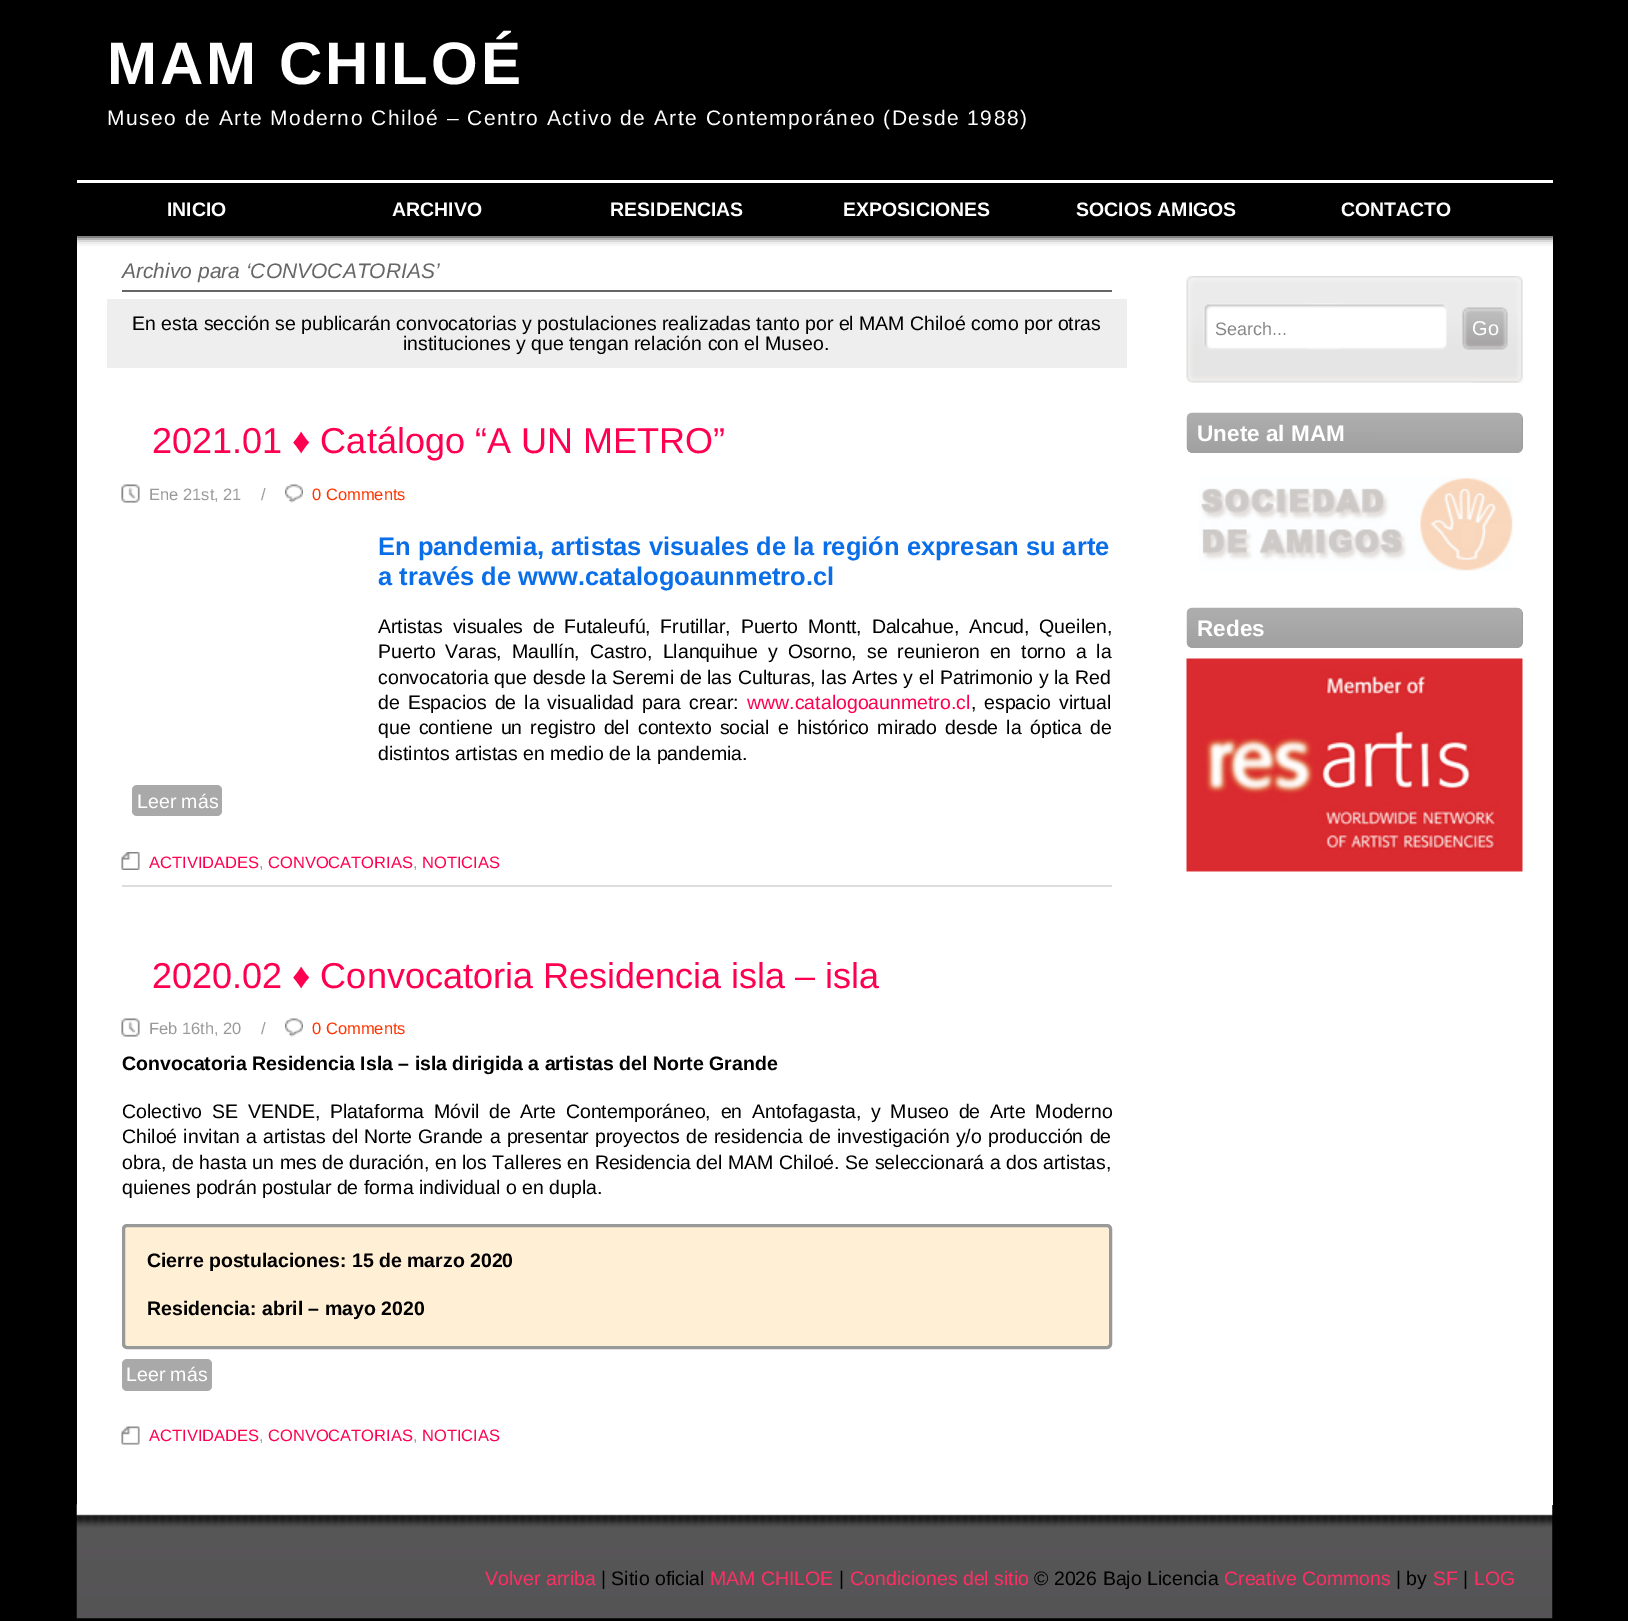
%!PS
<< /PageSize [1628 1621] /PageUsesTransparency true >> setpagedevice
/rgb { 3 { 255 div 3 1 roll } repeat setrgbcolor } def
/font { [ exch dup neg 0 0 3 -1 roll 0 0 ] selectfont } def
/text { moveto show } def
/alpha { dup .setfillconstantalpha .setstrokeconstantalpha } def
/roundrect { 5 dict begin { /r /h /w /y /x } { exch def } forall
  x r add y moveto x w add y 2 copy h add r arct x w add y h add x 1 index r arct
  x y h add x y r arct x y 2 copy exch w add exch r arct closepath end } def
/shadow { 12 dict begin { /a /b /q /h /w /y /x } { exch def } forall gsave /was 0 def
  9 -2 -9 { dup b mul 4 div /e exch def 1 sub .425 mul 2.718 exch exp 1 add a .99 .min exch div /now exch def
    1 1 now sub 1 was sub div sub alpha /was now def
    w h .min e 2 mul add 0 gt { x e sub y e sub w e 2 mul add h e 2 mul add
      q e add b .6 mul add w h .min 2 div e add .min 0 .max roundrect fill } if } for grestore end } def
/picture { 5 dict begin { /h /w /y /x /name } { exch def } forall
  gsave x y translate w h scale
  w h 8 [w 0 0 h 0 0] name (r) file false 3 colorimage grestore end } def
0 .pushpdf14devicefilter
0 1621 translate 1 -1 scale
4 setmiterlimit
0 0 0 rgb
0 0 1628 1621 rectfill
255 255 255 rgb
77 236 1476 1269 rectfill
gsave
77 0 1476 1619 rectclip
0 0 0 rgb
77 182 1476 55 0 4 1 shadow
grestore
77 180 1476 3 rectfill
102 102 102 rgb
122 290 990 2 rectfill
238 238 238 rgb
107 299 1020 69 rectfill
(img_01.rgb) 121 484 19 19 picture
(img_02.rgb) 285 484 18 19 picture
169 169 169 rgb
132 785 90 31 5 roundrect fill
(img_03.rgb) 121 852 19 18 picture
221 221 221 rgb
122 885 990 2 rectfill
(img_01.rgb) 121 1018 19 19 picture
(img_02.rgb) 285 1018 18 19 picture
255 239 213 rgb
123.5 1225.5 987 122 3.5 roundrect gsave fill grestore
153 153 153 rgb
3 setlinewidth
stroke
169 169 169 rgb
122 1359 90 32 5 roundrect fill
(img_04.rgb) 121 1426 19 19 picture
(img_05.rgb) 1186 276 337 107 picture
(img_06.rgb) 1473 276 50 107 picture
(img_07.rgb) 1203 303 244 47 picture
(img_08.rgb) 1462 307 46 43 picture
153 153 153 rgb
1187 413 336 40 6 roundrect fill
(img_09.rgb) 1186 412 337 41 picture
(img_10.rgb) 1199 477 314 94 picture
1187 608 336 40 6 roundrect fill
(img_11.rgb) 1186 607 337 41 picture
(img_12.rgb) 1186 658 337 214 picture
(img_13.rgb) 76 1504 1477 115 picture
/LiberationSans-Bold 60 font
255 255 255 rgb
107 84 moveto 3 0 (MAM CHILOÉ) ashow
/LiberationSans-Regular 21 font
107 125 moveto 1.5 0 (Museo de Arte Moderno Chiloé – Centro Activo de Arte Contemporáneo \(Desde 1988\)) ashow
/LiberationSans-Bold 19.5 font
(INICIO) 167 216 text
(ARCHIVO) 392 216 text
(RESIDENCIAS) 610 216 text
(EXPOSICIONES) 843 216 text
(SOCIOS AMIGOS) 1076 216 text
(CONTACTO) 1341 216 text
/LiberationSans-Italic 21 font
102 102 102 rgb
(Archivo para ‘CONVOCATORIAS’) 122 278 text
/LiberationSans-Regular 19.5 font
0 0 0 rgb
(En esta sección se publicarán convocatorias y postulaciones realizadas tanto por el MAM Chiloé como por otras) 132 330 text
(instituciones y que tengan relación con el Museo.) 403 350 text
/LiberationSans-Regular 36 font
255 0 80 rgb
(2021.01 ♦ Catálogo “A UN METRO”) 152 453 text
/LiberationSans-Regular 16.5 font
153 153 153 rgb
(Ene 21st, 21) 149 500 text
(/) 261 500 text
255 51 0 rgb
(0 Comments) 312 500 text
/LiberationSans-Bold 25.5 font
9 110 232 rgb
(En pandemia, artistas visuales de la región expresan su arte) 378 555 text
(a través de www.catalogoaunmetro.cl) 378 585 text
/LiberationSans-Regular 19.5 font
0 0 0 rgb
378 633 moveto 4.25 0 32 (Artistas visuales de Futaleufú, Frutillar, Puerto Montt, Dalcahue, Ancud, Queilen,) widthshow
378 658 moveto 4.5 0 32 (Puerto Varas, Maullín, Castro, Llanquihue y Osorno, se reunieron en torno a la) widthshow
378 684 moveto 0.3 0 32 (convocatoria que desde la Seremi de las Culturas, las Artes y el Patrimonio y la Red) widthshow
378 709 moveto 2.5 0 32 (de Espacios de la visualidad para crear:) widthshow
255 0 80 rgb
(www.catalogoaunmetro.cl) 747 709 text
0 0 0 rgb
(,) 971 709 text
984 709 moveto 2.5 0 32 (espacio virtual) widthshow
378 734 moveto 2.75 0 32 (que contiene un registro del contexto social e histórico mirado desde la óptica de) widthshow
(distintos artistas en medio de la pandemia.) 378 760 text
255 255 255 rgb
(Leer más) 137 808 text
/LiberationSans-Regular 16.5 font
255 0 80 rgb
(ACTIVIDADES) 149 868 text
153 153 153 rgb
(,) 259 868 text
255 0 80 rgb
(CONVOCATORIAS) 268 868 text
153 153 153 rgb
(,) 413 868 text
255 0 80 rgb
(NOTICIAS) 422 868 text
/LiberationSans-Regular 36 font
(2020.02 ♦ Convocatoria Residencia isla – isla) 152 988 text
/LiberationSans-Regular 16.5 font
153 153 153 rgb
(Feb 16th, 20) 149 1034 text
(/) 261 1034 text
255 51 0 rgb
(0 Comments) 312 1034 text
/LiberationSans-Bold 19.5 font
0 0 0 rgb
(Convocatoria Residencia Isla – isla dirigida a artistas del Norte Grande) 122 1070 text
/LiberationSans-Regular 19.5 font
122 1118 moveto 4.25 0 32 (Colectivo SE VENDE, Plataforma Móvil de Arte Contemporáneo, en Antofagasta, y Museo de Arte Moderno) widthshow
122 1143 moveto 0.8 0 32 (Chiloé invitan a artistas del Norte Grande a presentar proyectos de residencia de investigación y/o producción de) widthshow
122 1169 moveto 0.1 0 32 (obra, de hasta un mes de duración, en los Talleres en Residencia del MAM Chiloé. Se seleccionará a dos artistas,) widthshow
(quienes podrán postular de forma individual o en dupla.) 122 1194 text
/LiberationSans-Bold 19.5 font
(Cierre postulaciones: 15 de marzo 2020) 147 1267 text
(Residencia: abril – mayo 2020) 147 1315 text
/LiberationSans-Regular 19.5 font
255 255 255 rgb
(Leer más) 126 1381 text
/LiberationSans-Regular 16.5 font
255 0 80 rgb
(ACTIVIDADES) 149 1441 text
153 153 153 rgb
(,) 259 1441 text
255 0 80 rgb
(CONVOCATORIAS) 268 1441 text
153 153 153 rgb
(,) 413 1441 text
255 0 80 rgb
(NOTICIAS) 422 1441 text
/LiberationSans-Regular 18 font
136 136 136 rgb
(Search...) 1215 335 text
/LiberationSans-Regular 20 font
255 255 255 rgb
(Go) 1472 335 text
/LiberationSans-Bold 22.5 font
(Unete al MAM) 1197 441 text
(Redes) 1197 636 text
/LiberationSans-Regular 19.5 font
254 46 100 rgb
(Volver arriba) 485 1585 text
0 0 0 rgb
(| Sitio oficial) 601 1585 text
254 46 100 rgb
(MAM CHILOE) 710 1585 text
0 0 0 rgb
(|) 839 1585 text
254 46 100 rgb
(Condiciones del sitio) 850 1585 text
0 0 0 rgb
(© 2026 Bajo Licencia) 1034 1585 text
254 46 100 rgb
(Creative Commons) 1224 1585 text
0 0 0 rgb
(| by) 1396 1585 text
254 46 100 rgb
(SF) 1433 1585 text
0 0 0 rgb
(|) 1463 1585 text
254 46 100 rgb
(LOG) 1474 1585 text
.poppdf14devicefilter showpage
